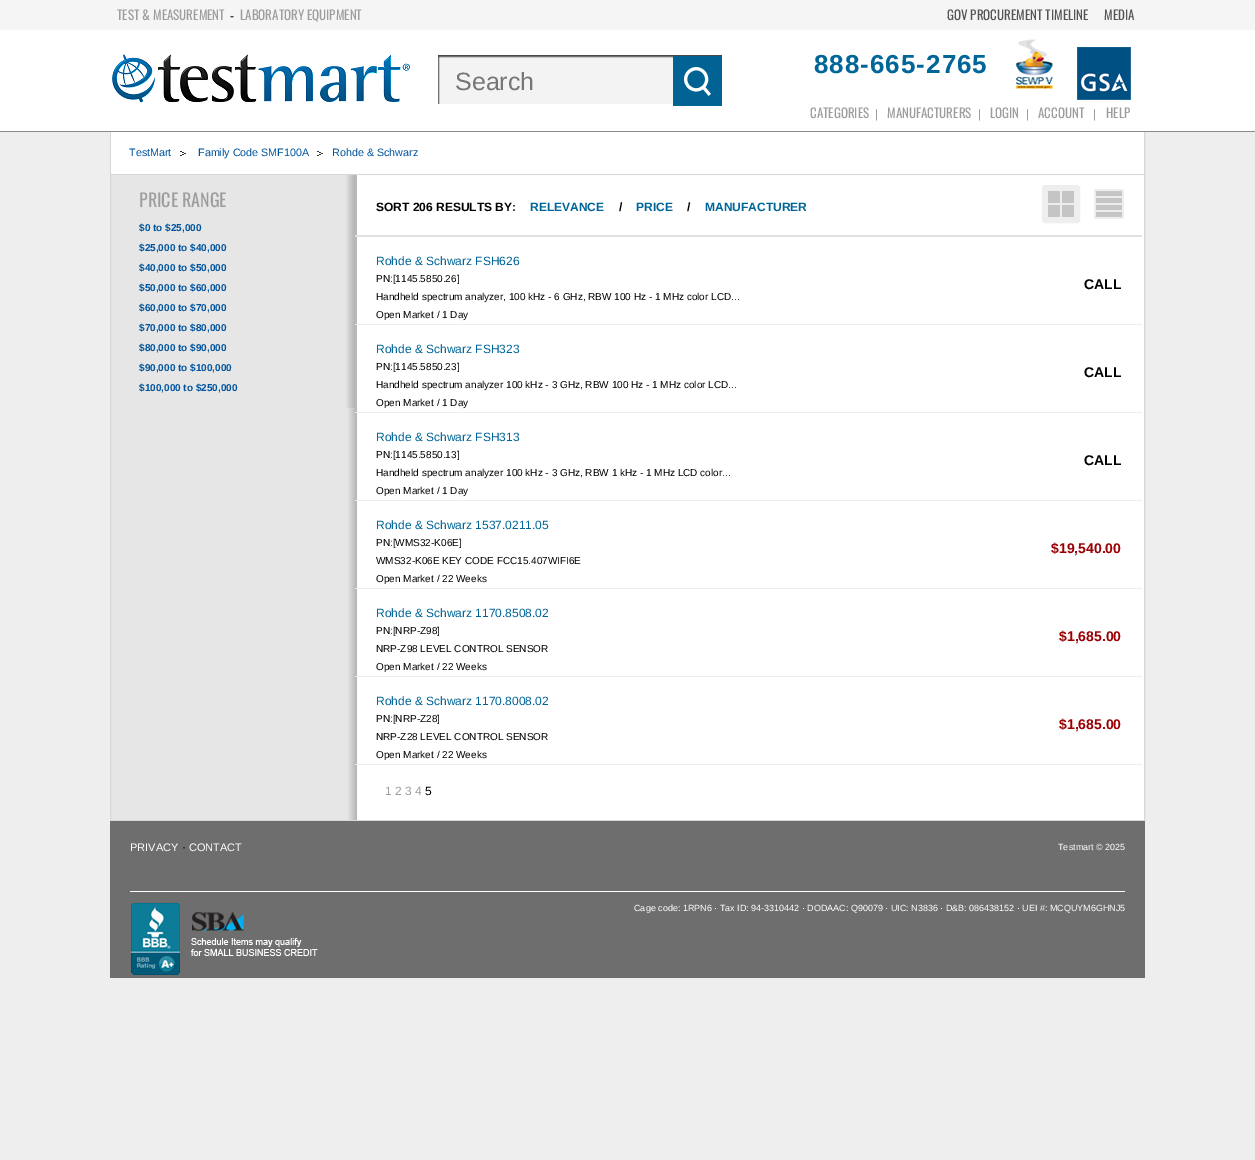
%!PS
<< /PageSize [1255 1160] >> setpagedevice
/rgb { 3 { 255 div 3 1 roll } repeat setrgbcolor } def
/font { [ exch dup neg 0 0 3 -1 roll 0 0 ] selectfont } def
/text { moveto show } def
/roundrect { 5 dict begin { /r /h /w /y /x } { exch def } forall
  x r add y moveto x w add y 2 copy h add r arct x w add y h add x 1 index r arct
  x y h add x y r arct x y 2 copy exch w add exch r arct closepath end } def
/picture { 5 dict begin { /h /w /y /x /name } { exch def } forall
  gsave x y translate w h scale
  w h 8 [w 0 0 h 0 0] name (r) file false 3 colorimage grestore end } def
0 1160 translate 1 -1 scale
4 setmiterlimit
238 238 238 rgb
0 0 1255 1160 rectfill
255 255 255 rgb
357 175 787 645 rectfill
(img_01.rgb) 111 175 246 645 picture
215 215 215 rgb
110.5 109.5 1034 711 rectstroke
(img_02.rgb) 0 0 1255 132 picture
(img_03.rgb) 112 54 298 49 picture
(img_04.rgb) 438 55 235 49 picture
(img_05.rgb) 673 55 49 51 picture
(img_06.rgb) 1016 39 37 50 picture
(img_07.rgb) 1077 47 54 53 picture
255 255 255 rgb
111 132 1033 42 rectfill
215 215 215 rgb
111 174 1033 1 rectfill
(img_08.rgb) 180 151 6 5 picture
(img_08.rgb) 317 151 6 5 picture
(img_09.rgb) 346 175 9 233 picture
225 225 225 rgb
355 235 787 2 rectfill
(img_10.rgb) 1046 189 30 30 picture
238 238 238 rgb
4 setlinewidth
1044 187 34 34 1 roundrect stroke
(img_11.rgb) 1094 189 30 30 picture
355 324 787 1 rectfill
355 412 787 1 rectfill
355 500 787 1 rectfill
355 588 787 1 rectfill
355 676 787 1 rectfill
355 764 787 1 rectfill
110 110 110 rgb
110 821 1035 157 rectfill
255 255 255 rgb
130 891 995 1 rectfill
(img_12.rgb) 131 903 187 72 picture
/Oswald-Regular 13 font
157 157 157 rgb
(TEST & MEASUREMENT) 117 20 text
/LiberationSans-Regular 12 font
0 0 0 rgb
(-) 230 20 text
/Oswald-Regular 13 font
157 157 157 rgb
(LABORATORY EQUIPMENT) 240 20 text
84 84 84 rgb
(GOV PROCUREMENT TIMELINE) 947 20 text
(MEDIA) 1104 20 text
/LiberationSans-Regular 25 font
117 117 117 rgb
(Search) 455 90 text
/LiberationSans-Bold 26 font
0 101 153 rgb
814 73 moveto 1 0 (888-665-2765) ashow
/Oswald-Regular 13 font
157 157 157 rgb
(CATEGORIES) 810 118 text
/LiberationSans-Regular 12 font
(|) 875 118 text
/Oswald-Regular 13 font
(MANUFACTURERS) 887 118 text
/LiberationSans-Regular 12 font
(|) 978 118 text
/Oswald-Regular 13 font
(LOGIN) 990 118 text
/LiberationSans-Regular 12 font
(|) 1026 118 text
/Oswald-Regular 13 font
(ACCOUNT) 1038 118 text
/LiberationSans-Regular 12 font
(|) 1093 118 text
/Oswald-Regular 13 font
(HELP) 1106 118 text
/LiberationSans-Regular 10.75 font
0 84 158 rgb
(TestMart) 129 156 text
(Family Code SMF100A) 198 156 text
(Rohde & Schwarz) 332 156 text
/Oswald-Regular 18 font
157 157 157 rgb
(PRICE RANGE) 139 207 text
/LiberationSans-Bold 10 font
0 84 158 rgb
($0 to $25,000) 139 231 text
($25,000 to $40,000) 139 251 text
($40,000 to $50,000) 139 271 text
($50,000 to $60,000) 139 291 text
($60,000 to $70,000) 139 311 text
($70,000 to $80,000) 139 331 text
($80,000 to $90,000) 139 351 text
($90,000 to $100,000) 139 371 text
($100,000 to $250,000) 139 391 text
/LiberationSans-Bold 12 font
0 0 0 rgb
(SORT 206 RESULTS BY:) 376 211 text
0 101 153 rgb
(RELEVANCE) 530 211 text
0 0 0 rgb
(/) 619 211 text
0 101 153 rgb
(PRICE) 636 211 text
0 0 0 rgb
(/) 687 211 text
0 101 153 rgb
(MANUFACTURER) 705 211 text
/LiberationSans-Regular 12 font
(Rohde & Schwarz FSH626) 376 265 text
/LiberationSans-Regular 10 font
0 0 0 rgb
(PN:[1145.5850.26]) 376 282 text
(Handheld spectrum analyzer, 100 kHz - 6 GHz, RBW 100 Hz - 1 MHz color LCD...) 376 300 text
(Open Market / 1 Day) 376 318 text
/LiberationSans-Bold 14 font
(CALL) 1084 289 text
/LiberationSans-Regular 12 font
0 101 153 rgb
(Rohde & Schwarz FSH323) 376 353 text
/LiberationSans-Regular 10 font
0 0 0 rgb
(PN:[1145.5850.23]) 376 370 text
(Handheld spectrum analyzer 100 kHz - 3 GHz, RBW 100 Hz - 1 MHz color LCD...) 376 388 text
(Open Market / 1 Day) 376 406 text
/LiberationSans-Bold 14 font
(CALL) 1084 377 text
/LiberationSans-Regular 12 font
0 101 153 rgb
(Rohde & Schwarz FSH313) 376 441 text
/LiberationSans-Regular 10 font
0 0 0 rgb
(PN:[1145.5850.13]) 376 458 text
(Handheld spectrum analyzer 100 kHz - 3 GHz, RBW 1 kHz - 1 MHz LCD color...) 376 476 text
(Open Market / 1 Day) 376 494 text
/LiberationSans-Bold 14 font
(CALL) 1084 465 text
/LiberationSans-Regular 12 font
0 101 153 rgb
(Rohde & Schwarz 1537.0211.05) 376 529 text
/LiberationSans-Regular 10 font
0 0 0 rgb
(PN:[WMS32-K06E]) 376 546 text
(WMS32-K06E KEY CODE FCC15.407WIFI6E) 376 564 text
(Open Market / 22 Weeks) 376 582 text
/LiberationSans-Bold 14 font
154 1 6 rgb
($19,540.00) 1051 553 text
/LiberationSans-Regular 12 font
0 101 153 rgb
(Rohde & Schwarz 1170.8508.02) 376 617 text
/LiberationSans-Regular 10 font
0 0 0 rgb
(PN:[NRP-Z98]) 376 634 text
(NRP-Z98 LEVEL CONTROL SENSOR) 376 652 text
(Open Market / 22 Weeks) 376 670 text
/LiberationSans-Bold 14 font
154 1 6 rgb
($1,685.00) 1059 641 text
/LiberationSans-Regular 12 font
0 101 153 rgb
(Rohde & Schwarz 1170.8008.02) 376 705 text
/LiberationSans-Regular 10 font
0 0 0 rgb
(PN:[NRP-Z28]) 376 722 text
(NRP-Z28 LEVEL CONTROL SENSOR) 376 740 text
(Open Market / 22 Weeks) 376 758 text
/LiberationSans-Bold 14 font
154 1 6 rgb
($1,685.00) 1059 729 text
/LiberationSans-Regular 12 font
157 157 157 rgb
(1 2 3 4) 385 795 text
0 0 0 rgb
(5) 425 795 text
/LiberationSans-Regular 11 font
255 255 255 rgb
(PRIVACY) 130 851 text
/LiberationSans-Regular 12 font
0 0 0 rgb
(·) 182 851 text
/LiberationSans-Regular 11 font
255 255 255 rgb
(CONTACT) 189 851 text
/LiberationSans-Regular 9 font
(Testmart © 2025) 1058 850 text
(Cage code: 1RPN6 · Tax ID: 94-3310442 · DODAAC: Q90079 · UIC: N3836 · D&B: 086438152 · UEI #: MCQUYM6GHNJ5) 634 911 text
showpage
